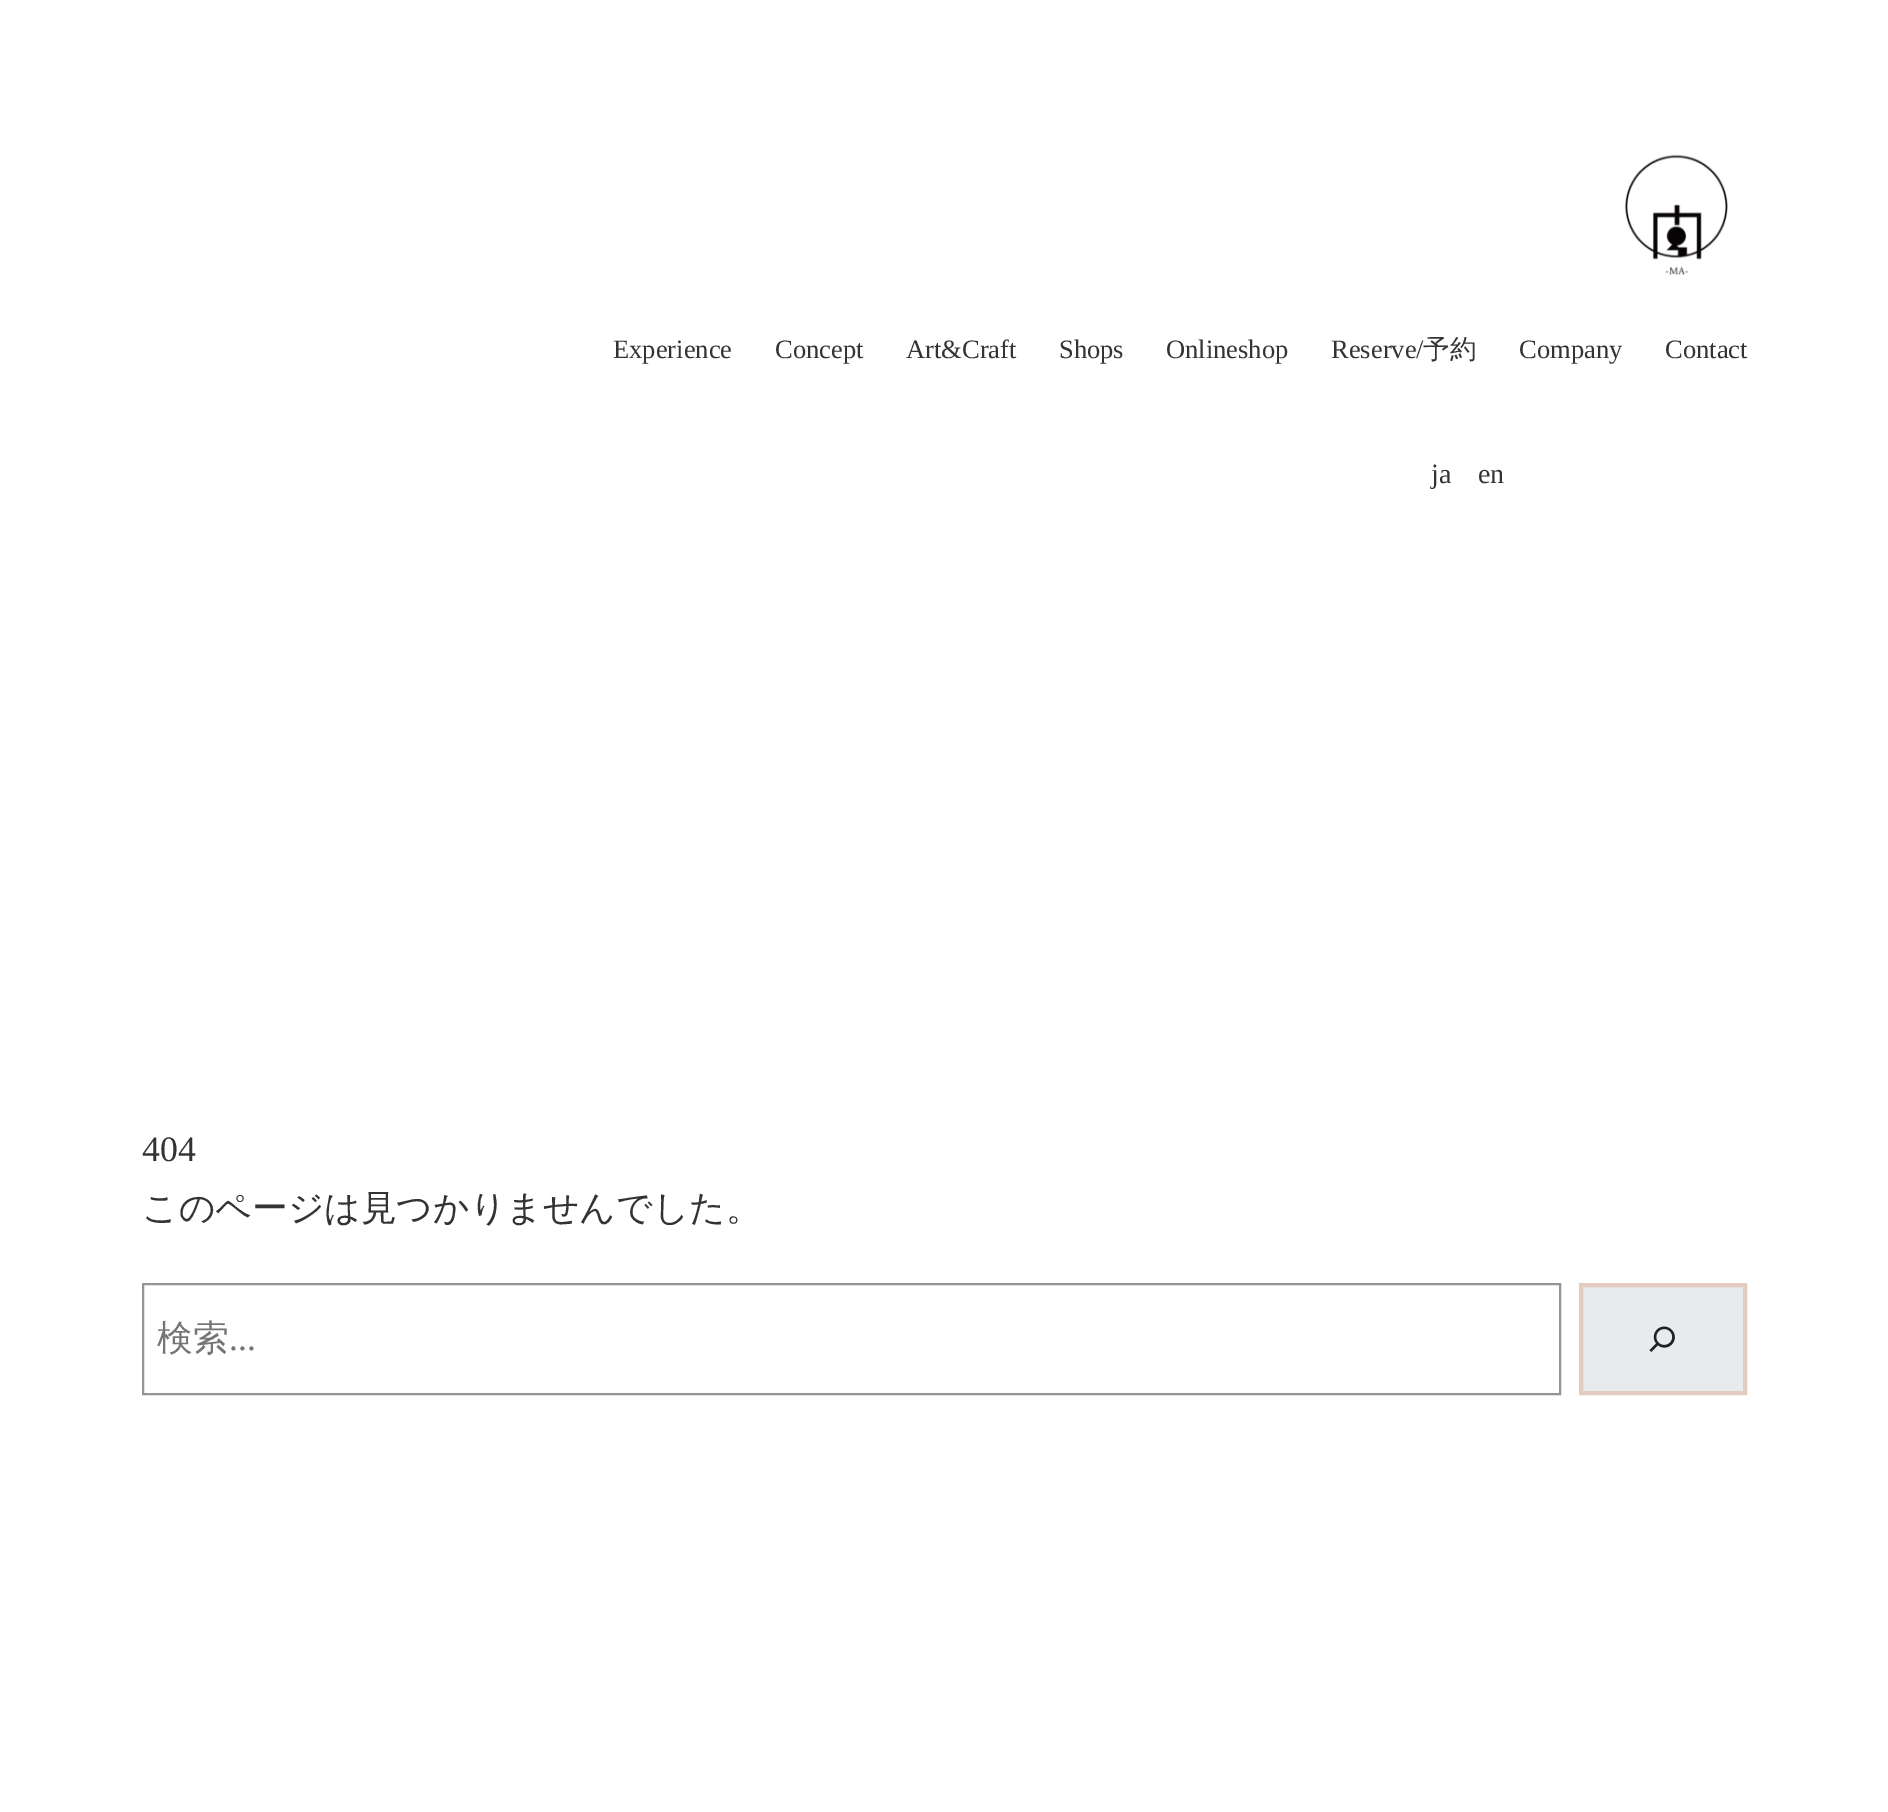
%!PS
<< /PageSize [1888 1812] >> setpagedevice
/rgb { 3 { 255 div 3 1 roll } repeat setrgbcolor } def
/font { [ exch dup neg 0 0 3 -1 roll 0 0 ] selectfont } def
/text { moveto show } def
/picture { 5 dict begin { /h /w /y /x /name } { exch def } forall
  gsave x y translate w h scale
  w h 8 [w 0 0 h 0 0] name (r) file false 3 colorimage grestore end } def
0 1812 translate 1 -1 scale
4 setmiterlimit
255 255 255 rgb
0 0 1888 1812 rectfill
(img_01.rgb) 1625 154 103 121 picture
148 148 148 rgb
2 setlinewidth
143 1284 1417 110 rectstroke
232 234 237 rgb
1581 1285 moveto 164 0 rlineto 0 108 rlineto -164 0 rlineto closepath gsave fill grestore
227 203 192 rgb
4 setlinewidth
stroke
(img_02.rgb) 1649 1326 26 26 picture
/LiberationSerif-Regular 26.5 font
51 51 51 rgb
(Experience) 613 358 text
(Concept) 775 358 text
(Art&Craft) 906 358 text
(Shops) 1059 358 text
(Onlineshop) 1166 358 text
(Reserve/) 1331 358 text
/WenQuanYiZenHei-Medium 26.5 font
(予約) 1423 358 text
/LiberationSerif-Regular 26.5 font
(Company) 1519 358 text
(Contact) 1665 358 text
/LiberationSerif-Regular 28 font
(ja) 1431 483 text
(en) 1478 483 text
/LiberationSerif-Regular 35.75 font
(404) 142 1161 text
/WenQuanYiZenHei-Medium 35.75 font
(このページは見つかりませんでした。) 142 1220 text
117 117 117 rgb
(検索) 157 1350 text
/LiberationSerif-Regular 35.75 font
(...) 229 1350 text
showpage
